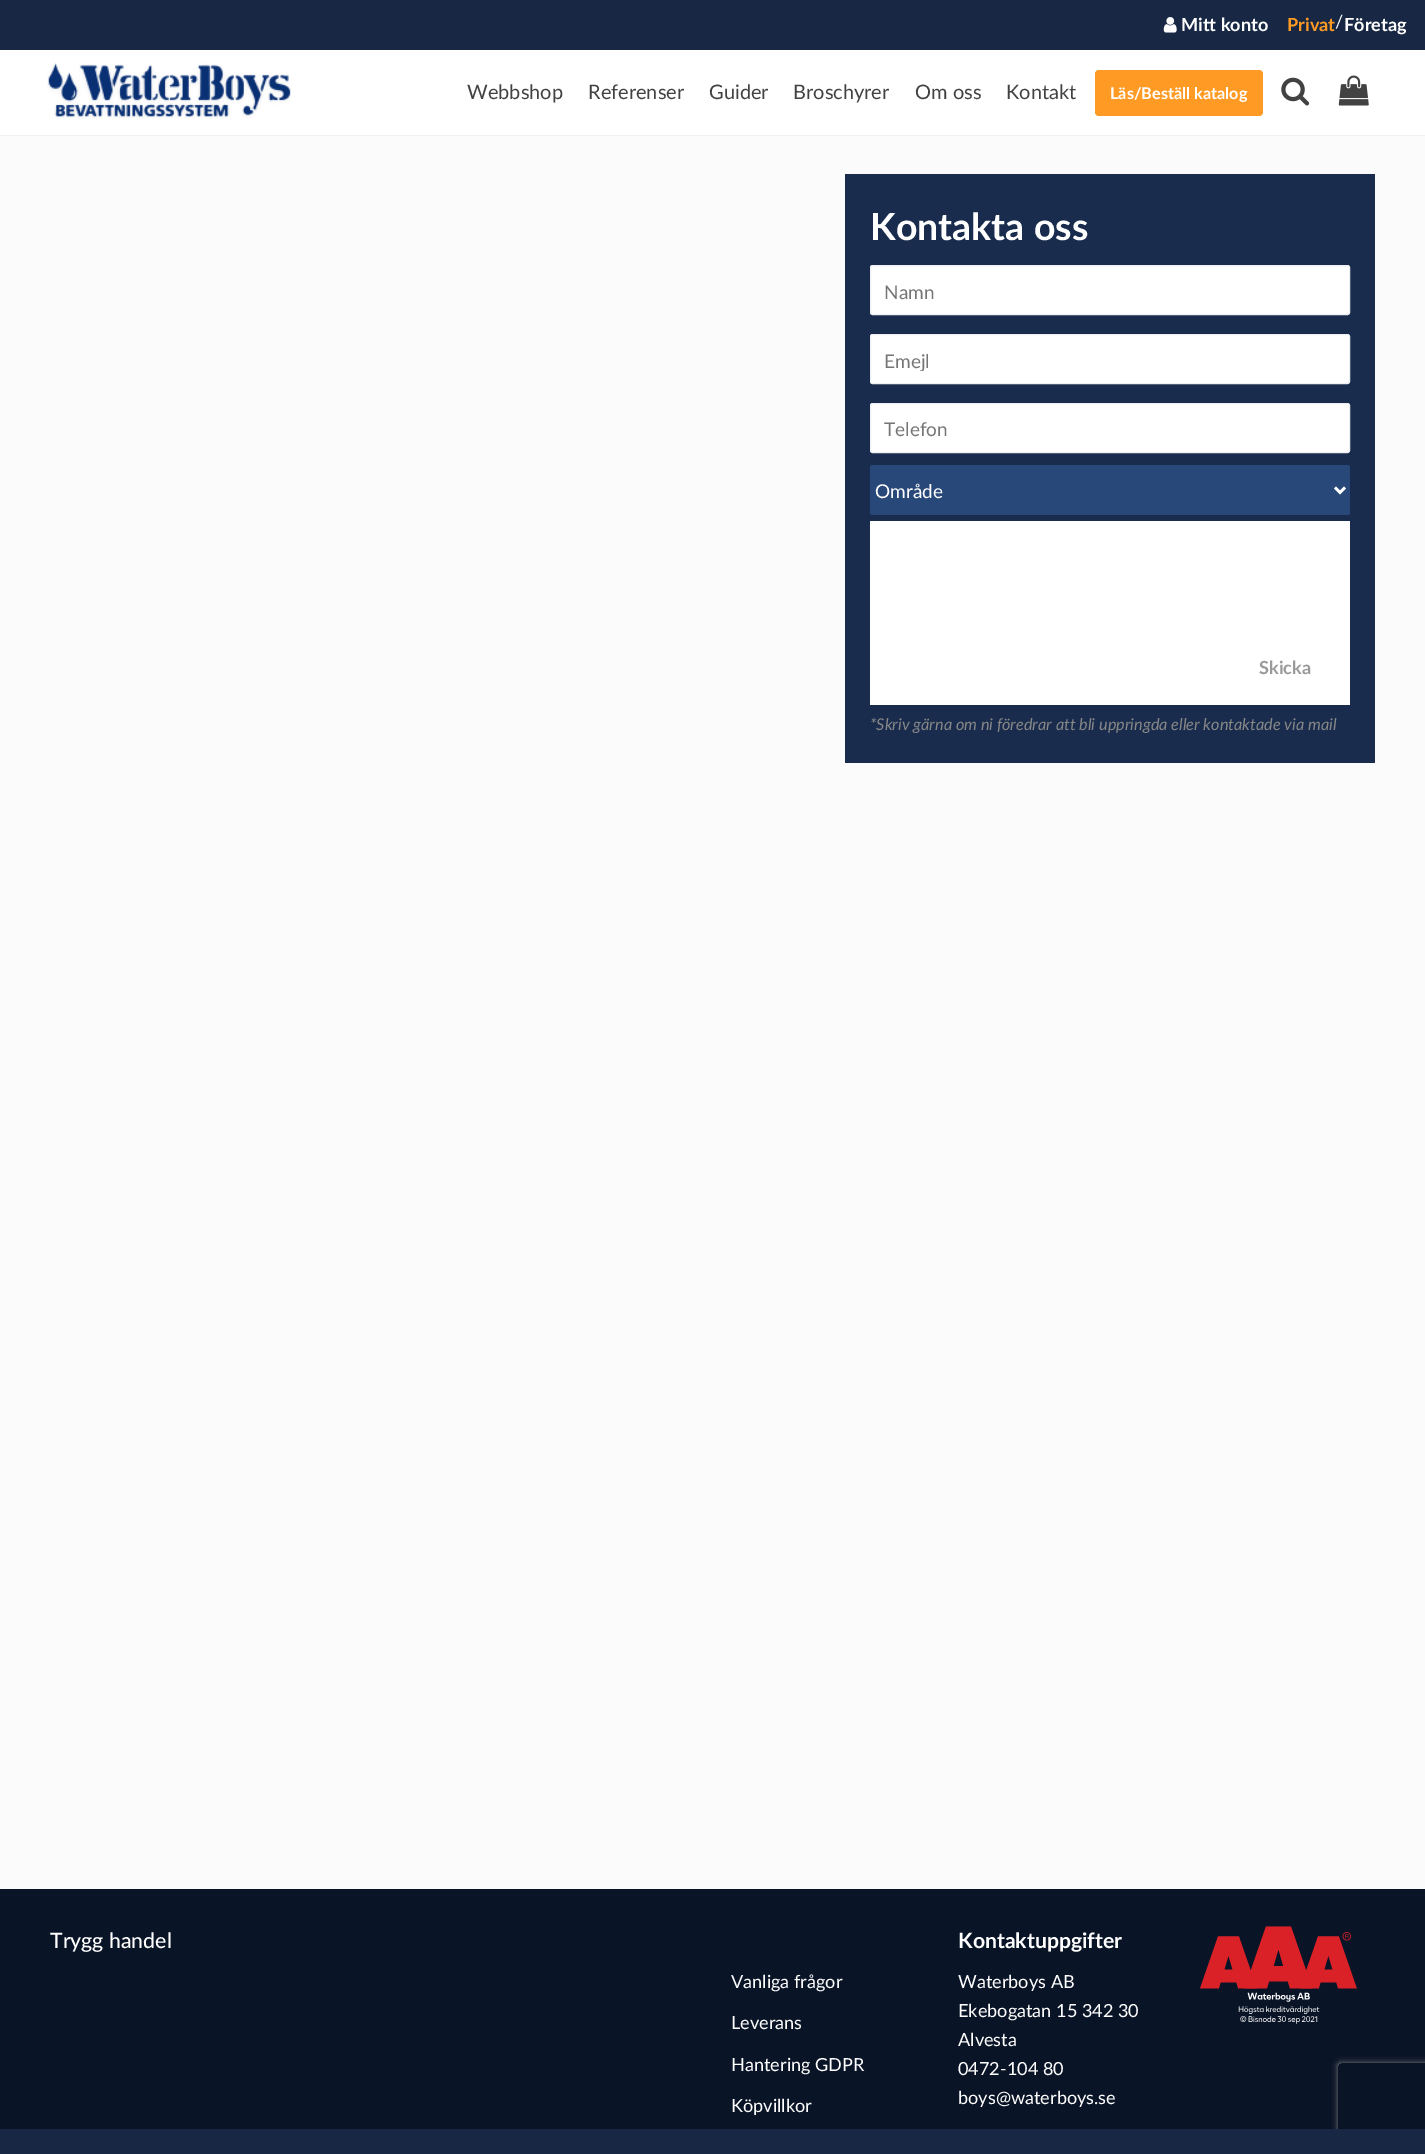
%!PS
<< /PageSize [1425 2154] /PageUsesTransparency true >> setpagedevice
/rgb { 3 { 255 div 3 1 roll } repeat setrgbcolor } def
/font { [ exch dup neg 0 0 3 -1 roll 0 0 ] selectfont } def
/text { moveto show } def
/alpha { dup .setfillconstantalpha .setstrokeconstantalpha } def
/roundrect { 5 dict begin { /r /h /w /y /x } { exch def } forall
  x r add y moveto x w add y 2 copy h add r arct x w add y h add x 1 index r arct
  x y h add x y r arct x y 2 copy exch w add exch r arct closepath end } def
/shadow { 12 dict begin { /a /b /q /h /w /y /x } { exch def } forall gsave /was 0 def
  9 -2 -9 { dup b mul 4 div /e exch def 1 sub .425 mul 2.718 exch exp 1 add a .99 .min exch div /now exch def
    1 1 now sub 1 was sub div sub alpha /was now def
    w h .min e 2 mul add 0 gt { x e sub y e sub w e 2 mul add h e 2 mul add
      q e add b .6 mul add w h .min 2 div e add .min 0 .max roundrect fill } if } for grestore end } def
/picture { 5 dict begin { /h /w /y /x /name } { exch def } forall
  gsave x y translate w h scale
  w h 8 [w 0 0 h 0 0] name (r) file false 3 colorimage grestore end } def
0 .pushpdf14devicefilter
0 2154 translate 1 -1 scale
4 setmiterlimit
10 20 39 rgb
0 0 1425 2154 rectfill
251 251 251 rgb
0 136 1425 1753 rectfill
24 40 68 rgb
0 0 1425 50 rectfill
(img_01.rgb) 1163 17 14 16 picture
255 255 255 rgb
0 50 1425 85 rectfill
237 239 241 rgb
0 135 1425 1 rectfill
(img_02.rgb) 47 63 244 56 picture
255 155 36 rgb
1095 70 168 46 4 roundrect fill
(img_03.rgb) 1281 77 29 29 picture
(img_04.rgb) 1338 75 31 31 picture
25 44 77 rgb
845 174 530 589 rectfill
255 255 255 rgb
870.5 265.5 479 49 2 roundrect gsave fill grestore
237 239 241 rgb
stroke
255 255 255 rgb
870.5 334.5 479 49 2 roundrect gsave fill grestore
237 239 241 rgb
stroke
255 255 255 rgb
870.5 403.5 479 49 2 roundrect gsave fill grestore
237 239 241 rgb
stroke
40 72 122 rgb
870 465 480 50 2.5 roundrect fill
255 255 255 rgb
2.5 setlinewidth
1335 487.5 moveto 5 5 rlineto 5 -5 rlineto stroke
870 521 480 184 rectfill
(img_05.rgb) 1200 1926 157 98 picture
gsave
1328 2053 moveto 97 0 rlineto 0 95 rlineto -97 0 rlineto closepath 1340.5 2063 moveto 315 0 rlineto 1.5 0 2.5 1 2.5 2.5 rcurveto 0 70 rlineto 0 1.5 -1 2.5 -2.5 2.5 rcurveto -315 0 rlineto -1.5 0 -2.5 -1 -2.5 -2.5 rcurveto 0 -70 rlineto 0 -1.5 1 -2.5 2.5 -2.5 rcurveto closepath eoclip newpath
128 128 128 rgb
1338 2063 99 75 2.5 3 1 shadow
grestore
24 40 68 rgb
0 2129 1425 25 rectfill
/Lato-Bold 18.1 font
255 255 255 rgb
(Mitt konto) 1181 31 text
255 155 36 rgb
(Privat) 1287 31 text
/Lato-Regular 18.1 font
255 255 255 rgb
(/) 1335 28 text
/Lato-Bold 18.1 font
(Företag) 1344 31 text
/Lato-Regular 20 font
66 66 66 rgb
(Webbshop) 467 99 text
(Referenser) 588 99 text
(Guider) 709 99 text
(Broschyrer) 793 99 text
(Om oss) 915 99 text
(Kontakt) 1006 99 text
/Lato-Bold 16.25 font
255 255 255 rgb
(Läs/Beställ katalog) 1110 99 text
/Lato-Bold 37.5 font
(Kontakta oss) 870 240 text
/Lato-Regular 19 font
117 117 117 rgb
(Namn) 884 299 text
gsave
884 349 452 22 rectclip
(Emejl) 884 368 text
grestore
(Telefon) 884 436 text
255 255 255 rgb
(Område) 875 498 text
/Lato-Bold 18.1 font
154 154 154 rgb
(Skicka) 1259 674 text
/Lato-Italic 16.25 font
135 135 135 rgb
(*Skriv gärna om ni föredrar att bli uppringda eller kontaktade via mail) 870 730 text
/Lato-Medium 21.25 font
255 255 255 rgb
(Trygg handel) 50 1948 text
/Lato-Regular 18.1 font
(Vanliga frågor) 731 1988 text
(Leverans) 731 2029 text
(Hantering GDPR) 731 2071 text
(Köpvillkor) 731 2112 text
/Lato-Bold 21.25 font
(Kontaktuppgifter) 958 1948 text
/Lato-Regular 18.1 font
(Waterboys AB) 958 1988 text
(Ekebogatan 15 342 30) 958 2017 text
(Alvesta) 958 2046 text
(0472-104 80) 958 2075 text
(boys@waterboys.se) 958 2104 text
.poppdf14devicefilter showpage
